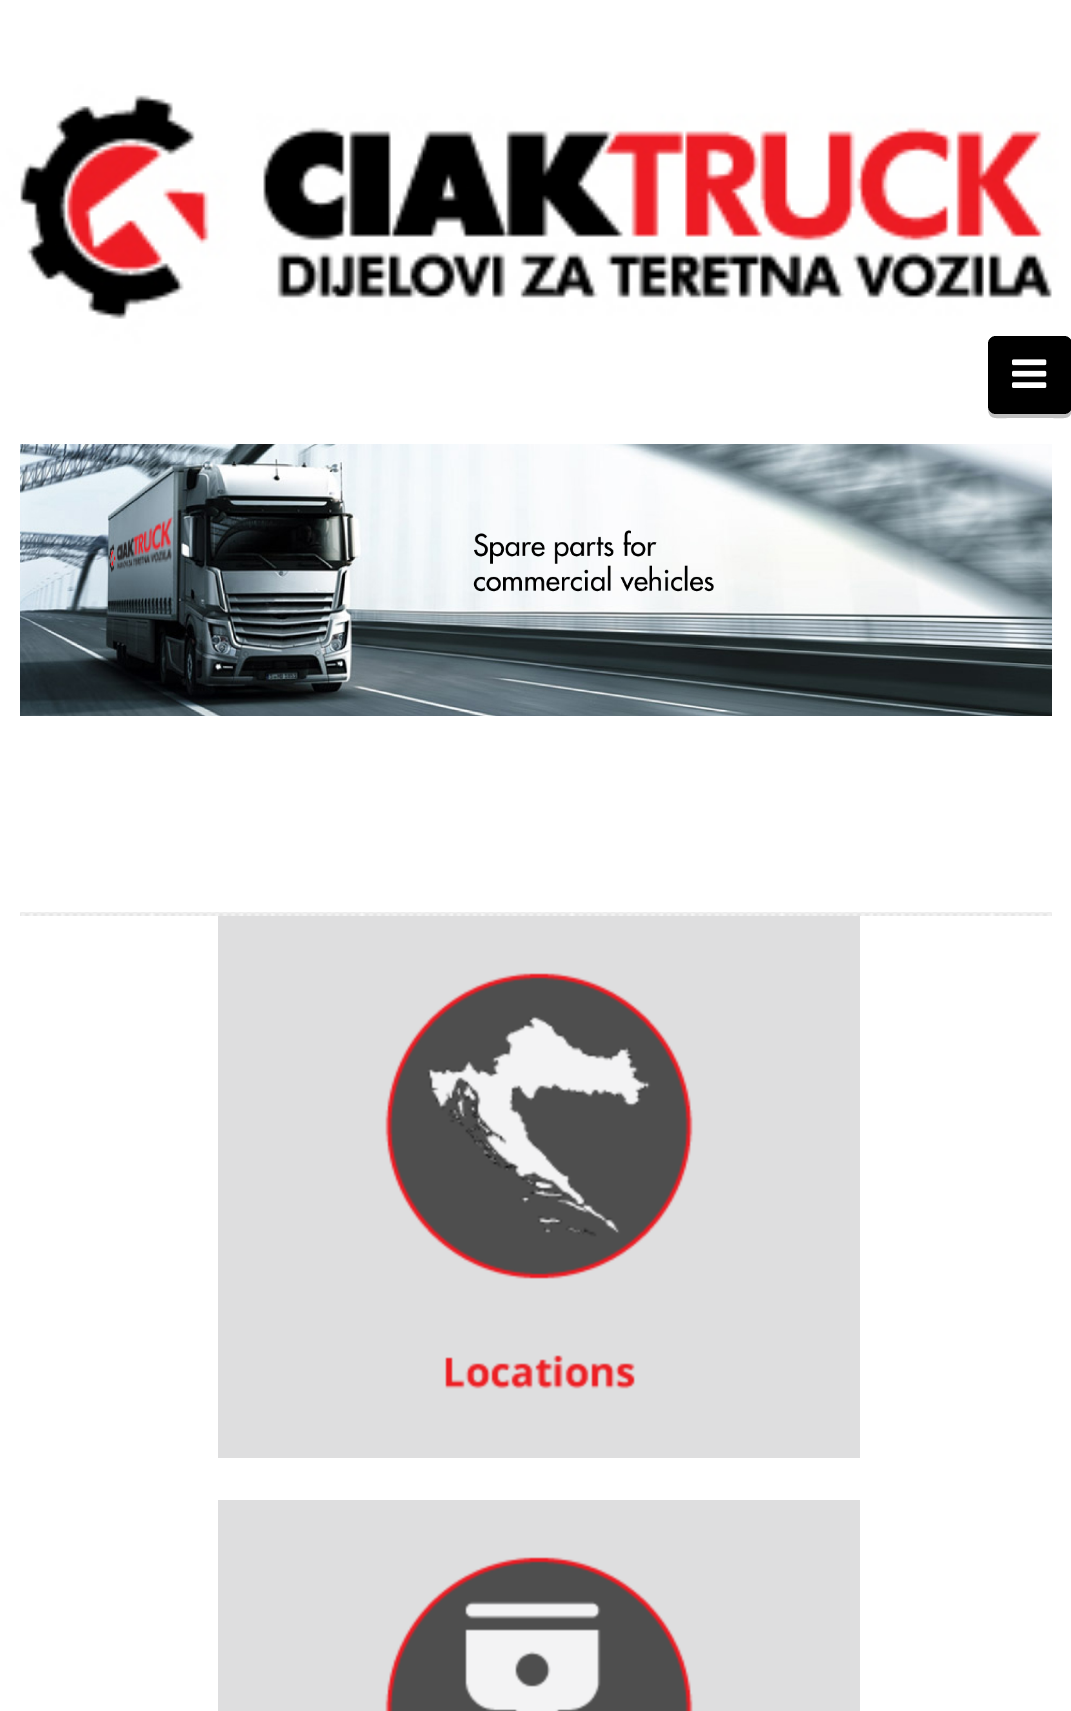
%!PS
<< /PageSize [1071 1711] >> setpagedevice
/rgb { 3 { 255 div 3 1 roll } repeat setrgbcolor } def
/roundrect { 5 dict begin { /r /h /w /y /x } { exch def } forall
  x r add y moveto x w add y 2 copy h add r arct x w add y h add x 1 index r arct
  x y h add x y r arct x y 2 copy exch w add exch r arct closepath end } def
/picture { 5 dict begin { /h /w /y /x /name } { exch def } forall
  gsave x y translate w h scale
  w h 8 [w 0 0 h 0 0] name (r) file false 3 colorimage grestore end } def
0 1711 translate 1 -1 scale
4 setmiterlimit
255 255 255 rgb
0 0 1071 1711 rectfill
(img_01.rgb) 0 0 1071 414 picture
191 191 191 rgb
988 406 moveto 0 14 6 12 19 12 rcurveto 46 0 rlineto 13 0 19 2 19 -12 rcurveto 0 4 -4 8 -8 8 rcurveto -68 0 rlineto -4 0 -8 -4 -8 -8 rcurveto closepath fill
0 0 0 rgb
988 336 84 78 8 roundrect fill
(img_02.rgb) 1012 359 35 29 picture
(img_03.rgb) 20 912 1032 4 picture
(img_04.rgb) 20 444 1032 272 picture
(img_05.rgb) 218 916 642 542 picture
(img_06.rgb) 218 1500 642 211 picture
showpage
